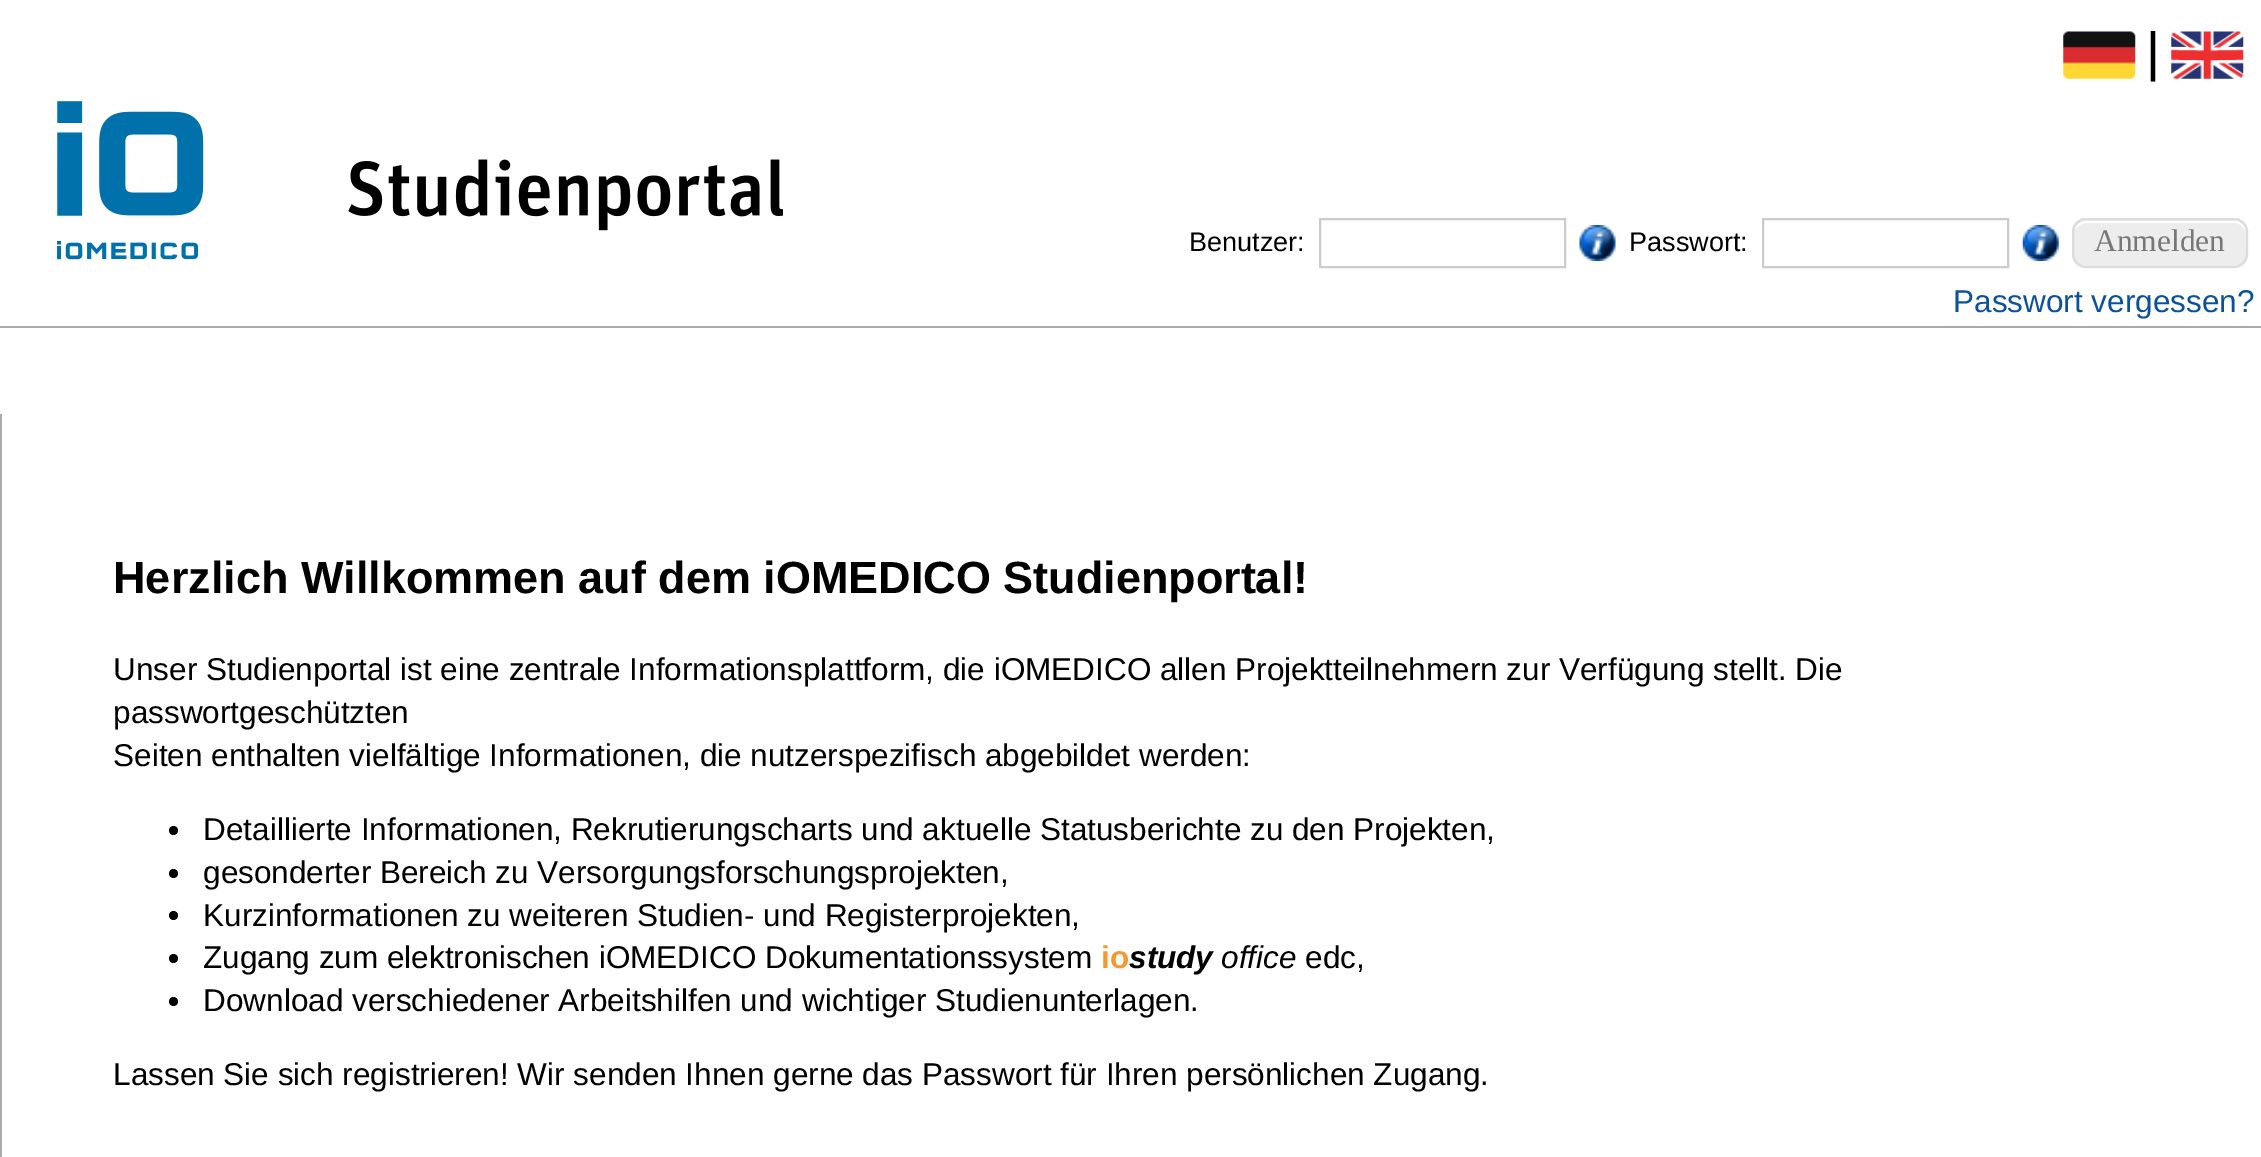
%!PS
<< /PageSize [2261 1157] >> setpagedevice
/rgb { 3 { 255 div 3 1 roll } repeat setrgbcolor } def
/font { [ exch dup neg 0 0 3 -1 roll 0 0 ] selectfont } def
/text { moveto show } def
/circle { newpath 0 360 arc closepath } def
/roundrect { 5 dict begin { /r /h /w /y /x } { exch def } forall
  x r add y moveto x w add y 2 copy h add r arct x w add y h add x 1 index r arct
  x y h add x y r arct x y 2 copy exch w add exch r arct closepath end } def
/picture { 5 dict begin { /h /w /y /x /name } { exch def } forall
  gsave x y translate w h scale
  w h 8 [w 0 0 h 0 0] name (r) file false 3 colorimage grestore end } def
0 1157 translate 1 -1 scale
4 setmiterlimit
255 255 255 rgb
0 0 2261 1157 rectfill
(img_01.rgb) 2063 31 73 48 picture
(img_02.rgb) 2171 31 73 48 picture
170 170 170 rgb
0 326 2261 2 rectfill
(img_03.rgb) 57 101 726 159 picture
204 204 204 rgb
2 setlinewidth
1320 219 245 48 rectstroke
(img_04.rgb) 1579 225 37 36 picture
1763 219 245 48 rectstroke
(img_05.rgb) 2022 225 37 36 picture
237 237 237 rgb
2072 218 176 50 14 roundrect fill
255 255 255 rgb
2086 223 moveto 148 0 rlineto 6 0 12 5 12 11 rcurveto 0 -2 rlineto 0 -6 -5 -11 -11 -11 rcurveto -149 0 rlineto -5 0 -9 3 -11 8 rcurveto 3 -3 7 -6 11 -6 rcurveto closepath fill
220 220 220 rgb
2073 219 174 48 13 roundrect stroke
170 170 170 rgb
0 414 2 743 rectfill
0 0 0 rgb
173.5 830.5 4.5 circle fill
173.5 873.5 4.5 circle fill
173.5 915.5 4.5 circle fill
173.5 958.5 4.5 circle fill
173.5 1001.5 4.5 circle fill
/LiberationSans-Regular 54 font
(|) 2146 70 text
/LiberationSans-Regular 27 font
(Benutzer:) 1189 251 text
(Passwort:) 1629 251 text
/LiberationSerif-Regular 31.5 font
119 119 119 rgb
(Anmelden) 2094 251 text
/LiberationSans-Regular 31.5 font
11 82 154 rgb
(Passwort vergessen?) 1953 312 text
/LiberationSans-Bold 45 font
0 0 0 rgb
(Herzlich Willkommen auf dem iOMEDICO Studienportal!) 113 593 text
/LiberationSans-Regular 31.5 font
(Unser Studienportal ist eine zentrale Informationsplattform, die iOMEDICO allen Projektteilnehmern zur Verfügung stellt. Die) 113 680 text
(passwortgeschützten) 113 723 text
(Seiten enthalten vielfältige Informationen, die nutzerspezifisch abgebildet werden:) 113 766 text
(Detaillierte Informationen, Rekrutierungscharts und aktuelle Statusberichte zu den Projekten,) 203 840 text
(gesonderter Bereich zu Versorgungsforschungsprojekten,) 203 883 text
(Kurzinformationen zu weiteren Studien- und Registerprojekten,) 203 926 text
(Zugang zum elektronischen iOMEDICO Dokumentationssystem) 203 968 text
/LiberationSans-Bold 31.5 font
246 151 49 rgb
(io) 1101 968 text
/LiberationSans-BoldItalic 31.5 font
0 0 0 rgb
(study) 1129 968 text
/LiberationSans-Italic 31.5 font
(office) 1221 968 text
/LiberationSans-Regular 31.5 font
(edc,) 1305 968 text
(Download verschiedener Arbeitshilfen und wichtiger Studienunterlagen.) 203 1011 text
(Lassen Sie sich registrieren! Wir senden Ihnen gerne das Passwort für Ihren persönlichen Zugang.) 113 1085 text
showpage
